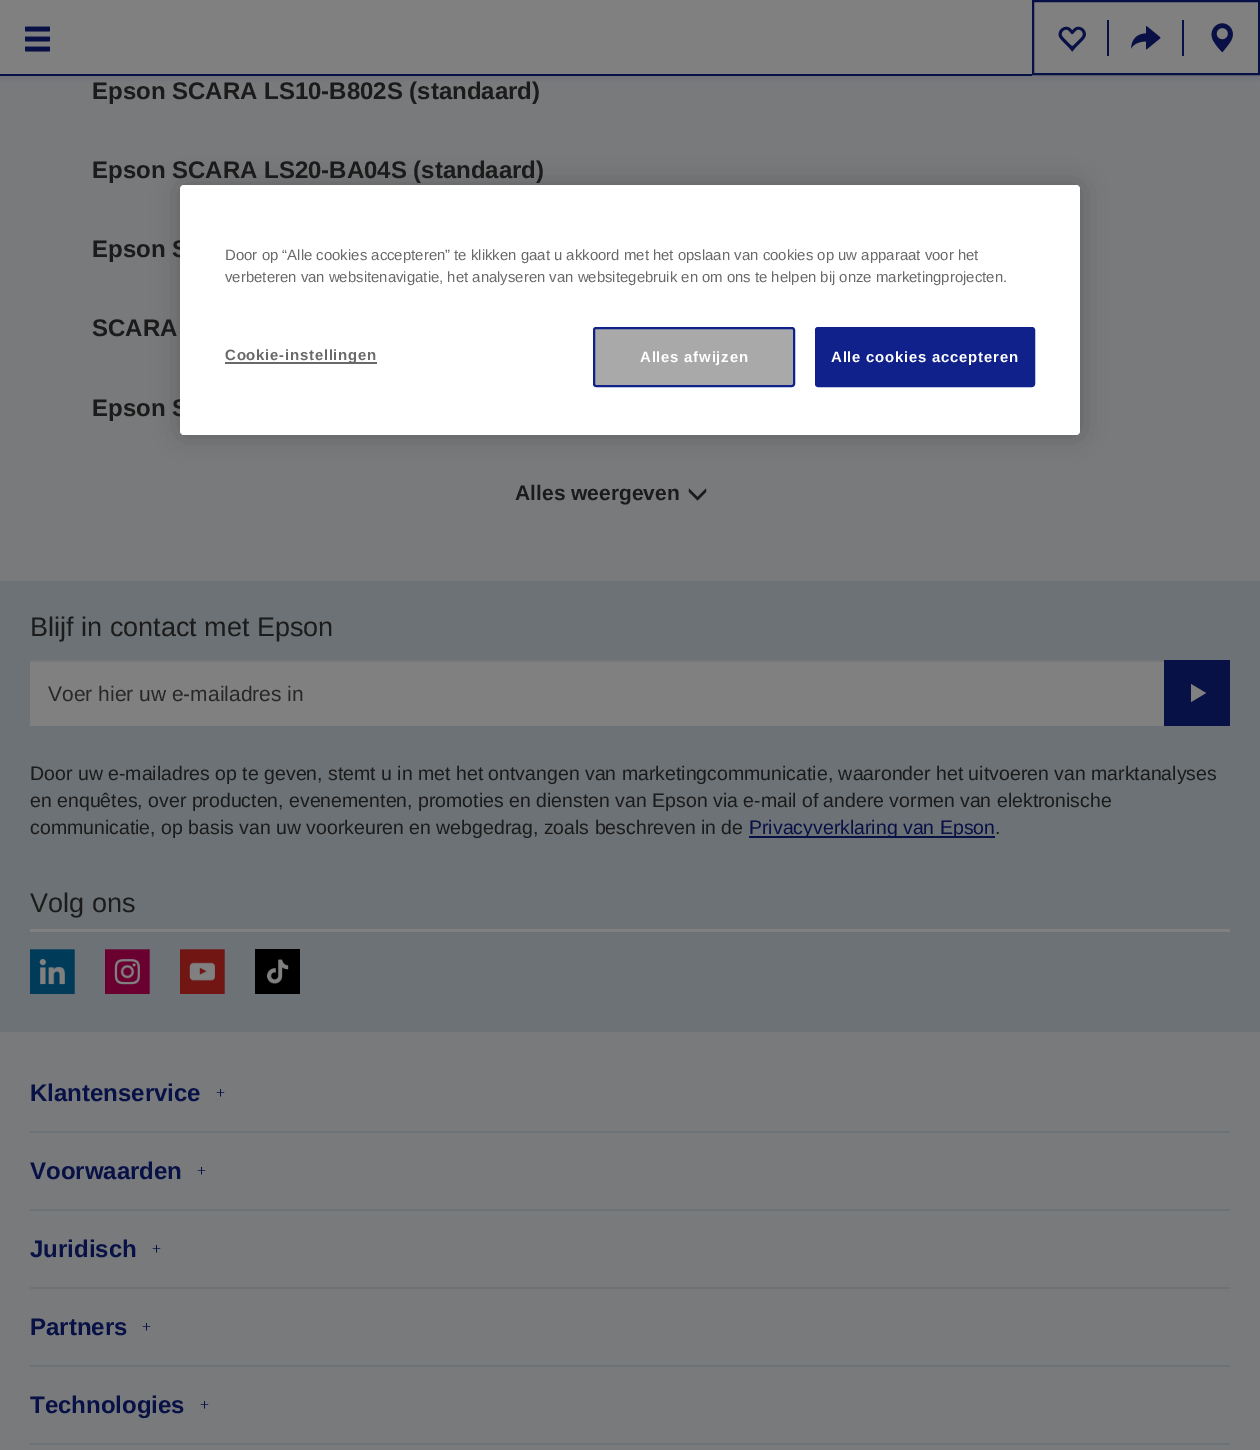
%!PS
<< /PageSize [1260 1450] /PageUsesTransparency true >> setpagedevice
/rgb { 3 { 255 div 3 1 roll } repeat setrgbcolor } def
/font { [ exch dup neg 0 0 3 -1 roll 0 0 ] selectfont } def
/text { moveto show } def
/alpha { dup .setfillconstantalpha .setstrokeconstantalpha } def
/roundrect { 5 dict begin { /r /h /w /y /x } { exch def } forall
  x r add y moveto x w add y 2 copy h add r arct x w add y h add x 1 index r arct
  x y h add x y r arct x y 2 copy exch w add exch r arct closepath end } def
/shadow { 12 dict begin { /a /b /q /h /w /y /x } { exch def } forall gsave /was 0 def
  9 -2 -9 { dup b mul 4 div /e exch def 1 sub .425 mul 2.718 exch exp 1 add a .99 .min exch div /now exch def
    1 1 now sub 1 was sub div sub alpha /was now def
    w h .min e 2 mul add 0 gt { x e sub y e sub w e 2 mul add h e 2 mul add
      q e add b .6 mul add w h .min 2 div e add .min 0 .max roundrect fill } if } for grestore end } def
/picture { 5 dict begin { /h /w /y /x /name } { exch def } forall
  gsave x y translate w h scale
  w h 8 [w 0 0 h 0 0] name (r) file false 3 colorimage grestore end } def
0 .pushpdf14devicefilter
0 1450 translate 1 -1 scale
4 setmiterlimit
121 122 124 rgb
0 0 1260 1450 rectfill
8 17 70 rgb
0 3 1260 75 0 4 0.1 shadow
128 128 128 rgb
0 0 1258 74 rectfill
8 17 70 rgb
0 74 1032 2 rectfill
(img_01.rgb) 25 26 25 26 picture
2 setlinewidth
1033 1 226 73 rectstroke
(img_02.rgb) 1058 26 28 26 picture
1107 20 2 36 rectfill
(img_03.rgb) 1131 26 30 24 picture
1182 20 2 36 rectfill
(img_04.rgb) 1211 23 22 30 picture
(img_05.rgb) 688 488 19 13 picture
109 114 118 rgb
0 581 1260 451 rectfill
128 128 128 rgb
30 662 1134 64 rectfill
118 118 118 rgb
30 660 1134 2 rectfill
8 17 70 rgb
1164 660 66 66 rectfill
128 128 128 rgb
1191 702 moveto 0 -18 rlineto 15 9 rlineto closepath fill
8 17 70 rgb
749 836 246 2 rectfill
128 128 128 rgb
30 929 1200 3 rectfill
(img_06.rgb) 30 949 45 45 picture
(img_07.rgb) 105 949 45 45 picture
(img_08.rgb) 180 949 45 45 picture
(img_09.rgb) 255 949 45 45 picture
109 114 118 rgb
30 1131 1200 2 rectfill
30 1209 1200 2 rectfill
30 1287 1200 2 rectfill
30 1365 1200 2 rectfill
30 1443 1200 2 rectfill
0 0 0 rgb
180 185 900 250 4 13.5 0.2 shadow
/LiberationSans-Bold 24 font
27 27 27 rgb
(Epson SCARA LS10-B802S \(standaard\)) 92 99 text
(Epson SCARA LS20-BA04S \(standaard\)) 92 178 text
(Epson S) 92 257 text
(SCARA) 92 336 text
(Epson S) 92 416 text
/LiberationSans-Bold 21 font
(Alles weergeven) 515 500 text
/LiberationSans-Regular 27 font
(Blijf in contact met Epson) 30 636 text
/LiberationSans-Regular 21 font
37 39 41 rgb
(Voer hier uw e-mailadres in) 48 701 text
/LiberationSans-Regular 19.5 font
27 27 27 rgb
(Door uw e-mailadres op te geven, stemt u in met het ontvangen van marketingcommunicatie, waaronder het uitvoeren van marktanalyses) 30 780 text
(en enquêtes, over producten, evenementen, promoties en diensten van Epson via e-mail of andere vormen van elektronische) 30 807 text
(communicatie, op basis van uw voorkeuren en webgedrag, zoals beschreven in de) 30 834 text
8 17 70 rgb
(Privacyverklaring van Epson) 749 834 text
27 27 27 rgb
(.) 995 834 text
/LiberationSans-Regular 27 font
(Volg ons) 30 912 text
/LiberationSans-Bold 24 font
8 17 70 rgb
(Klantenservice) 30 1101 text
/LiberationSerif-Regular 16 font
(+) 216 1098 text
/LiberationSans-Bold 24 font
(Voorwaarden) 30 1179 text
/LiberationSerif-Regular 16 font
(+) 197 1176 text
/LiberationSans-Bold 24 font
(Juridisch) 30 1257 text
/LiberationSerif-Regular 16 font
(+) 152 1254 text
/LiberationSans-Bold 24 font
(Partners) 30 1335 text
/LiberationSerif-Regular 16 font
(+) 142 1332 text
/LiberationSans-Bold 24 font
(Technologies) 30 1413 text
/LiberationSerif-Regular 16 font
(+) 200 1410 text
255 255 255 rgb
180 185 900 250 4 roundrect fill
/LiberationSans-Regular 14.95 font
105 105 105 rgb
(Door op “Alle cookies accepteren” te klikken gaat u akkoord met het opslaan van cookies op uw apparaat voor het) 225 260 text
225 282 moveto -0.1 0 32 (verbeteren van websitenavigatie, het analyseren van websitegebruik en om ons te helpen bij onze marketingprojecten.) widthshow
225 362 152 2 rectfill
/LiberationSans-Bold 14.95 font
225 360 moveto 0.75 0 (Cookie-instellingen) ashow
169 169 169 rgb
594 328 200 58 2 roundrect gsave fill grestore
16 33 139 rgb
stroke
255 255 255 rgb
640 362 moveto 0.75 0 (Alles afwijzen) ashow
16 33 139 rgb
816 328 218 58 2 roundrect gsave fill grestore
stroke
255 255 255 rgb
831 362 moveto 0.75 0 (Alle cookies accepteren) ashow
.poppdf14devicefilter showpage
